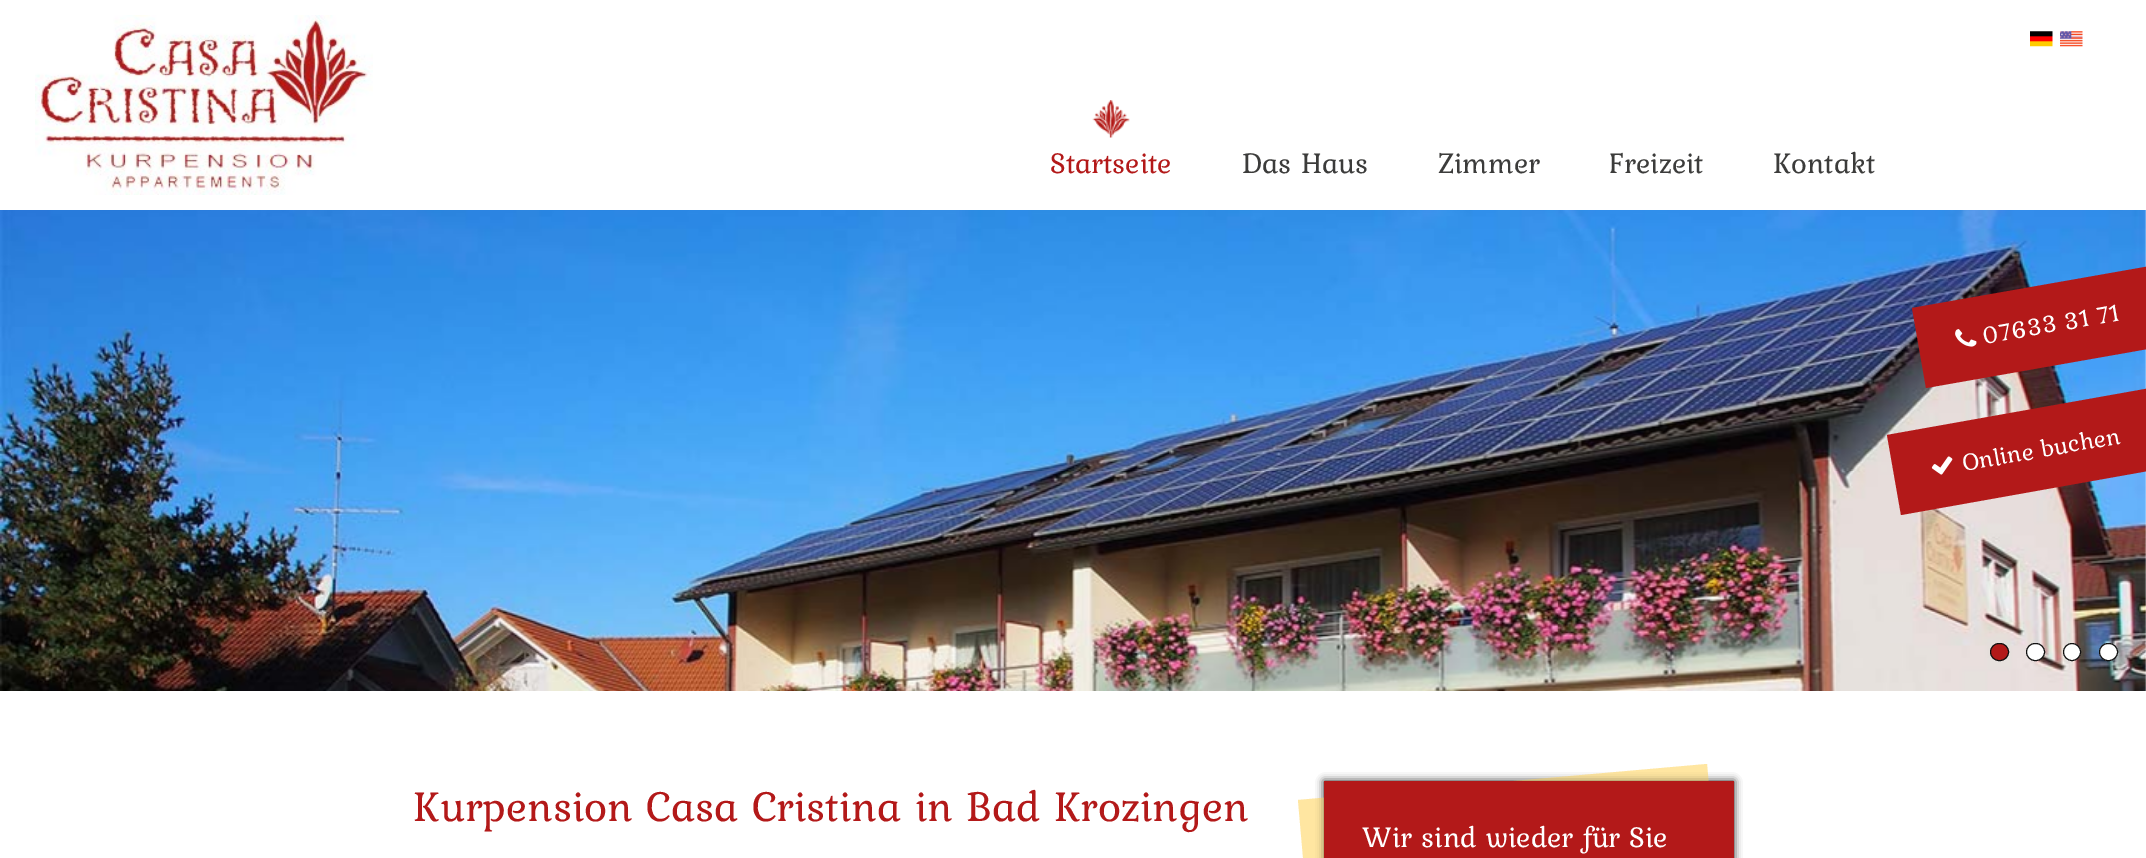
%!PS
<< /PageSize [2146 858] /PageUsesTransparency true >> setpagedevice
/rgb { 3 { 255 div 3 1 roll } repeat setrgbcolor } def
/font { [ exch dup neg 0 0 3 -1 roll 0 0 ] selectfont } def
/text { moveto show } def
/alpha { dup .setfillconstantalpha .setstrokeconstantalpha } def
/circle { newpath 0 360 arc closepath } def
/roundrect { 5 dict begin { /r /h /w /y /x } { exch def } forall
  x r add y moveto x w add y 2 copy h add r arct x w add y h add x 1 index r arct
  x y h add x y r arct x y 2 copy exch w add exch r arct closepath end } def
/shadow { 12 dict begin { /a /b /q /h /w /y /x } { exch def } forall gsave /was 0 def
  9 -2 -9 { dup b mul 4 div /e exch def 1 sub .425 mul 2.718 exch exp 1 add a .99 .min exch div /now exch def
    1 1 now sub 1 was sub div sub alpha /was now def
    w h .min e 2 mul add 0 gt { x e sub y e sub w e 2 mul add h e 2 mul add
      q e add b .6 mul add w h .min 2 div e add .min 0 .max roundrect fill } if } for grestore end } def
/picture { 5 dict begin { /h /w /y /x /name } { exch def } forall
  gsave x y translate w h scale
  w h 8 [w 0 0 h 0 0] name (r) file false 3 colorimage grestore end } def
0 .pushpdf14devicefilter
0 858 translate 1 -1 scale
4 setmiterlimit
255 255 255 rgb
0 0 2146 858 rectfill
(img_01.rgb) 35 15 338 180 picture
(img_02.rgb) 2030 31 23 16 picture
(img_03.rgb) 2060 31 23 16 picture
(img_04.rgb) 1092 100 38 38 picture
(img_05.rgb) 0 210 2146 481 picture
179 25 25 rgb
1990.5 643.5 18 17 8.5 roundrect gsave fill grestore
17 17 17 rgb
stroke
255 255 255 rgb
2026.5 643.5 18 17 8.5 roundrect gsave fill grestore
17 17 17 rgb
stroke
255 255 255 rgb
2072 652 8.5 circle gsave fill grestore
17 17 17 rgb
stroke
255 255 255 rgb
2099.5 643.5 18 17 8.5 roundrect gsave fill grestore
17 17 17 rgb
stroke
179 25 25 rgb
1912 308 moveto 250 -44 rlineto 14 80 rlineto -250 44 rlineto closepath fill
(img_06.rgb) 1955 329 22 18 picture
1887 435 moveto 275 -49 rlineto 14 80 rlineto -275 49 rlineto closepath fill
(img_07.rgb) 1931 456 22 19 picture
0 0 0 rgb
1324 781 410 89 0 4 0.5 shadow
255 230 161 rgb
1298 800 moveto 409 -36 rlineto 51 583 rlineto -409 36 rlineto closepath fill
0 0 0 rgb
1324 781 410 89 0 4 0.5 shadow
179 25 25 rgb
1324 781 410 77 rectfill
/Kurale-Regular 30 font
(Startseite) 1050 173 text
60 60 59 rgb
(Das Haus) 1242 173 text
(Zimmer) 1438 173 text
(Freizeit) 1609 173 text
(Kontakt) 1773 173 text
/Kurale-Regular 25 font
255 255 255 rgb
gsave 1984 344 translate -10 rotate 0 0 moveto (07633 31 71) show grestore
gsave 1964 471 translate -10 rotate 0 0 moveto (Online buchen) show grestore
/Kurale-Regular 44 font
179 25 25 rgb
(Kurpension Casa Cristina in Bad Krozingen) 413 821 text
/Kurale-Regular 30 font
255 255 255 rgb
(Wir sind wieder für Sie) 1362 847 text
.poppdf14devicefilter showpage
